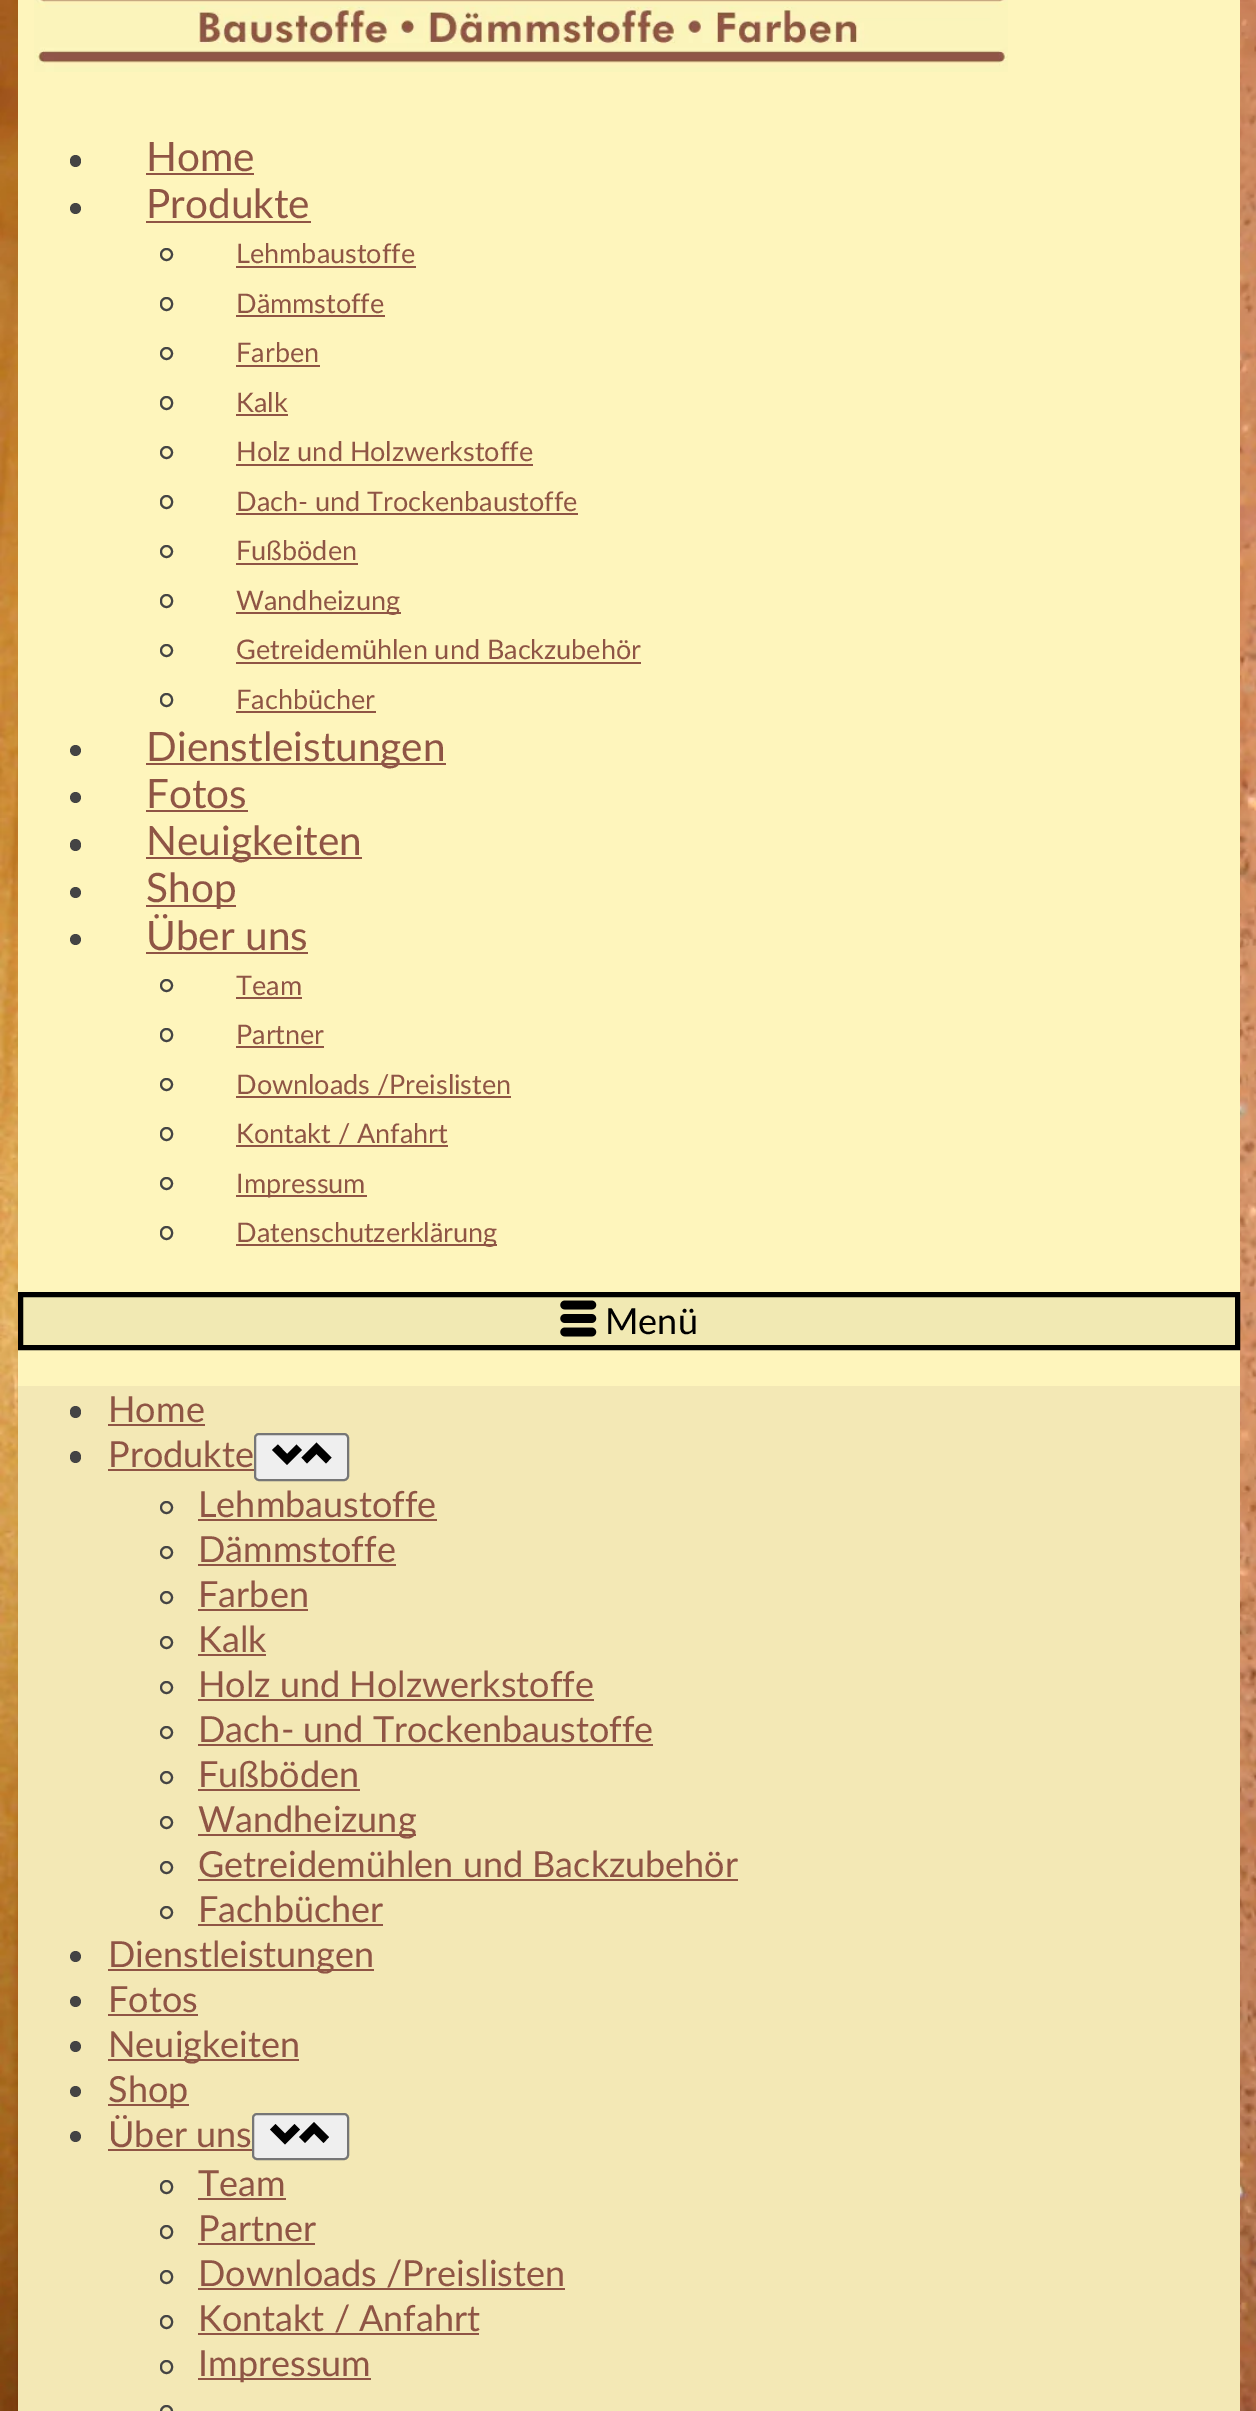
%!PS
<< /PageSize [1256 2411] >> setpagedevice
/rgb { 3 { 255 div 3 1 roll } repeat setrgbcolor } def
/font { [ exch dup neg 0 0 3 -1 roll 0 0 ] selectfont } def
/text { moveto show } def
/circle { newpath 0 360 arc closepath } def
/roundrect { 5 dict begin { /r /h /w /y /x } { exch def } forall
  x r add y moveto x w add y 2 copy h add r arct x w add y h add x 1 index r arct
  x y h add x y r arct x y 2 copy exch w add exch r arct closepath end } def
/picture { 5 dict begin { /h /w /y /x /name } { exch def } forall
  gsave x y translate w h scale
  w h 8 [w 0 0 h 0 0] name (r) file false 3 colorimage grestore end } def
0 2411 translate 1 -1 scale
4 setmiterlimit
255 255 255 rgb
0 0 1256 2411 rectfill
(img_01.rgb) 0 0 1256 2411 picture
254 245 188 rgb
18 0 1222 1386 rectfill
(img_02.rgb) 34 0 974 72 picture
68 68 68 rgb
70 155 11 12 5.5 roundrect fill
143 85 69 rgb
146 173 108 2 rectfill
68 68 68 rgb
75.5 208.5 5.5 circle fill
143 85 69 rgb
146 221 165 2 rectfill
68 68 68 rgb
2 setlinewidth
166.5 254.5 5.5 circle stroke
143 85 69 rgb
236 266 180 2 rectfill
68 68 68 rgb
161 298 11 12 5.5 roundrect stroke
143 85 69 rgb
236 315 149 2 rectfill
68 68 68 rgb
166.5 353.5 5.5 circle stroke
143 85 69 rgb
236 365 84 2 rectfill
68 68 68 rgb
161 397 11 12 5.5 roundrect stroke
143 85 69 rgb
236 414 52 2 rectfill
68 68 68 rgb
166.5 452.5 5.5 circle stroke
143 85 69 rgb
236 464 297 2 rectfill
68 68 68 rgb
161 496 11 12 5.5 roundrect stroke
143 85 69 rgb
236 513 342 2 rectfill
68 68 68 rgb
166.5 551.5 5.5 circle stroke
143 85 69 rgb
236 563 122 2 rectfill
68 68 68 rgb
161 595 11 12 5.5 roundrect stroke
143 85 69 rgb
236 612 165 2 rectfill
68 68 68 rgb
166.5 650.5 5.5 circle stroke
143 85 69 rgb
236 662 405 2 rectfill
68 68 68 rgb
161 694 11 12 5.5 roundrect stroke
143 85 69 rgb
236 711 140 2 rectfill
68 68 68 rgb
75.5 750.5 5.5 circle fill
143 85 69 rgb
146 763 300 2 rectfill
68 68 68 rgb
75.5 797.5 5.5 circle fill
143 85 69 rgb
146 810 102 2 rectfill
68 68 68 rgb
70 839 11 12 5.5 roundrect fill
143 85 69 rgb
146 857 216 2 rectfill
68 68 68 rgb
75.5 892.5 5.5 circle fill
143 85 69 rgb
146 905 90 2 rectfill
68 68 68 rgb
75.5 939.5 5.5 circle fill
143 85 69 rgb
146 952 162 2 rectfill
68 68 68 rgb
166.5 985.5 5.5 circle stroke
143 85 69 rgb
236 997 66 2 rectfill
68 68 68 rgb
161 1029 11 12 5.5 roundrect stroke
143 85 69 rgb
236 1046 88 2 rectfill
68 68 68 rgb
166.5 1084.5 5.5 circle stroke
143 85 69 rgb
236 1096 275 2 rectfill
68 68 68 rgb
161 1128 11 12 5.5 roundrect stroke
143 85 69 rgb
236 1145 212 2 rectfill
68 68 68 rgb
166.5 1183.5 5.5 circle stroke
143 85 69 rgb
236 1195 131 2 rectfill
68 68 68 rgb
161 1227 11 12 5.5 roundrect stroke
143 85 69 rgb
236 1244 261 2 rectfill
241 233 179 rgb
20.5 1294.5 moveto 1217 0 rlineto 0 53 rlineto -1217 0 rlineto closepath gsave fill grestore
0 0 0 rgb
5 setlinewidth
stroke
(img_03.rgb) 560 1300 37 37 picture
243 232 181 rgb
18 1386 1222 1025 rectfill
68 68 68 rgb
70 1406 11 12 5.5 roundrect fill
143 85 69 rgb
108 1424 97 2 rectfill
68 68 68 rgb
70 1451 11 12 5.5 roundrect fill
143 85 69 rgb
108 1469 146 2 rectfill
239 239 239 rgb
255 1434 93 46 4 roundrect gsave fill grestore
118 118 118 rgb
2 setlinewidth
stroke
0 0 0 rgb
302 1450 moveto -5.5 -5.5 rlineto -9.5 9.5 rlineto -9 -9.5 rlineto -6 5.5 rlineto 15 15 rlineto closepath fill
301.5 1457.5 moveto 5.5 6 rlineto 9.5 -9.5 rlineto 9.5 9.5 rlineto 5.5 -6 rlineto -15 -15 rlineto closepath fill
68 68 68 rgb
166.5 1507.5 5.5 circle stroke
143 85 69 rgb
198 1519 239 2 rectfill
68 68 68 rgb
166.5 1552.5 5.5 circle stroke
143 85 69 rgb
198 1564 198 2 rectfill
68 68 68 rgb
166.5 1597.5 5.5 circle stroke
143 85 69 rgb
198 1609 110 2 rectfill
68 68 68 rgb
166.5 1642.5 5.5 circle stroke
143 85 69 rgb
198 1654 68 2 rectfill
68 68 68 rgb
166.5 1687.5 5.5 circle stroke
143 85 69 rgb
198 1699 396 2 rectfill
68 68 68 rgb
166.5 1732.5 5.5 circle stroke
143 85 69 rgb
198 1744 455 2 rectfill
68 68 68 rgb
166.5 1777.5 5.5 circle stroke
143 85 69 rgb
198 1789 162 2 rectfill
68 68 68 rgb
166.5 1822.5 5.5 circle stroke
143 85 69 rgb
198 1834 218 2 rectfill
68 68 68 rgb
166.5 1867.5 5.5 circle stroke
143 85 69 rgb
198 1879 540 2 rectfill
68 68 68 rgb
166.5 1912.5 5.5 circle stroke
143 85 69 rgb
198 1924 185 2 rectfill
68 68 68 rgb
75.5 1956.5 5.5 circle fill
143 85 69 rgb
108 1969 266 2 rectfill
68 68 68 rgb
75.5 2001.5 5.5 circle fill
143 85 69 rgb
108 2014 90 2 rectfill
68 68 68 rgb
75.5 2046.5 5.5 circle fill
143 85 69 rgb
108 2059 191 2 rectfill
68 68 68 rgb
75.5 2091.5 5.5 circle fill
143 85 69 rgb
108 2104 81 2 rectfill
68 68 68 rgb
75.5 2136.5 5.5 circle fill
143 85 69 rgb
108 2149 144 2 rectfill
239 239 239 rgb
253 2114 95 45 4 roundrect gsave fill grestore
118 118 118 rgb
stroke
0 0 0 rgb
300 2129.5 moveto -5.5 -5.5 rlineto -9.5 9.5 rlineto -9.5 -9.5 rlineto -5.5 5.5 rlineto 15 15 rlineto closepath fill
299 2137 moveto 6 6 rlineto 9 -9.5 rlineto 9.5 9.5 rlineto 5.5 -6 rlineto -15 -15 rlineto closepath fill
68 68 68 rgb
161 2181 11 12 5.5 roundrect stroke
143 85 69 rgb
198 2198 88 2 rectfill
68 68 68 rgb
161 2226 11 12 5.5 roundrect stroke
143 85 69 rgb
198 2243 117 2 rectfill
68 68 68 rgb
161 2271 11 12 5.5 roundrect stroke
143 85 69 rgb
198 2288 367 2 rectfill
68 68 68 rgb
161 2316 11 12 5.5 roundrect stroke
143 85 69 rgb
198 2333 281 2 rectfill
68 68 68 rgb
161 2361 11 12 5.5 roundrect stroke
143 85 69 rgb
198 2378 173 2 rectfill
68 68 68 rgb
161 2406 11 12 5.5 roundrect stroke
/Lato-Regular 40.5 font
143 85 69 rgb
(Home) 146 171 text
(Produkte) 146 218 text
/Lato-Regular 27 font
(Lehmbaustoffe) 236 263 text
(Dämmstoffe) 236 313 text
(Farben) 236 362 text
(Kalk) 236 412 text
(Holz und Holzwerkstoffe) 236 461 text
(Dach- und Trockenbaustoffe) 236 511 text
(Fußböden) 236 560 text
(Wandheizung) 236 610 text
(Getreidemühlen und Backzubehör) 236 659 text
(Fachbücher) 236 709 text
/Lato-Regular 40.5 font
(Dienstleistungen) 146 761 text
(Fotos) 146 808 text
(Neuigkeiten) 146 855 text
(Shop) 146 902 text
(Über uns) 146 950 text
/Lato-Regular 27 font
(Team) 236 995 text
(Partner) 236 1044 text
(Downloads /Preislisten) 236 1094 text
(Kontakt / Anfahrt) 236 1143 text
(Impressum) 236 1193 text
(Datenschutzerklärung) 236 1242 text
/Lato-Regular 36 font
0 0 0 rgb
(Menü) 605 1334 text
143 85 69 rgb
(Home) 108 1422 text
(Produkte) 108 1467 text
(Lehmbaustoffe) 198 1517 text
(Dämmstoffe) 198 1562 text
(Farben) 198 1607 text
(Kalk) 198 1652 text
(Holz und Holzwerkstoffe) 198 1697 text
(Dach- und Trockenbaustoffe) 198 1742 text
(Fußböden) 198 1787 text
(Wandheizung) 198 1832 text
(Getreidemühlen und Backzubehör) 198 1877 text
(Fachbücher) 198 1922 text
(Dienstleistungen) 108 1967 text
(Fotos) 108 2012 text
(Neuigkeiten) 108 2057 text
(Shop) 108 2102 text
(Über uns) 108 2147 text
(Team) 198 2196 text
(Partner) 198 2241 text
(Downloads /Preislisten) 198 2286 text
(Kontakt / Anfahrt) 198 2331 text
(Impressum) 198 2376 text
showpage
